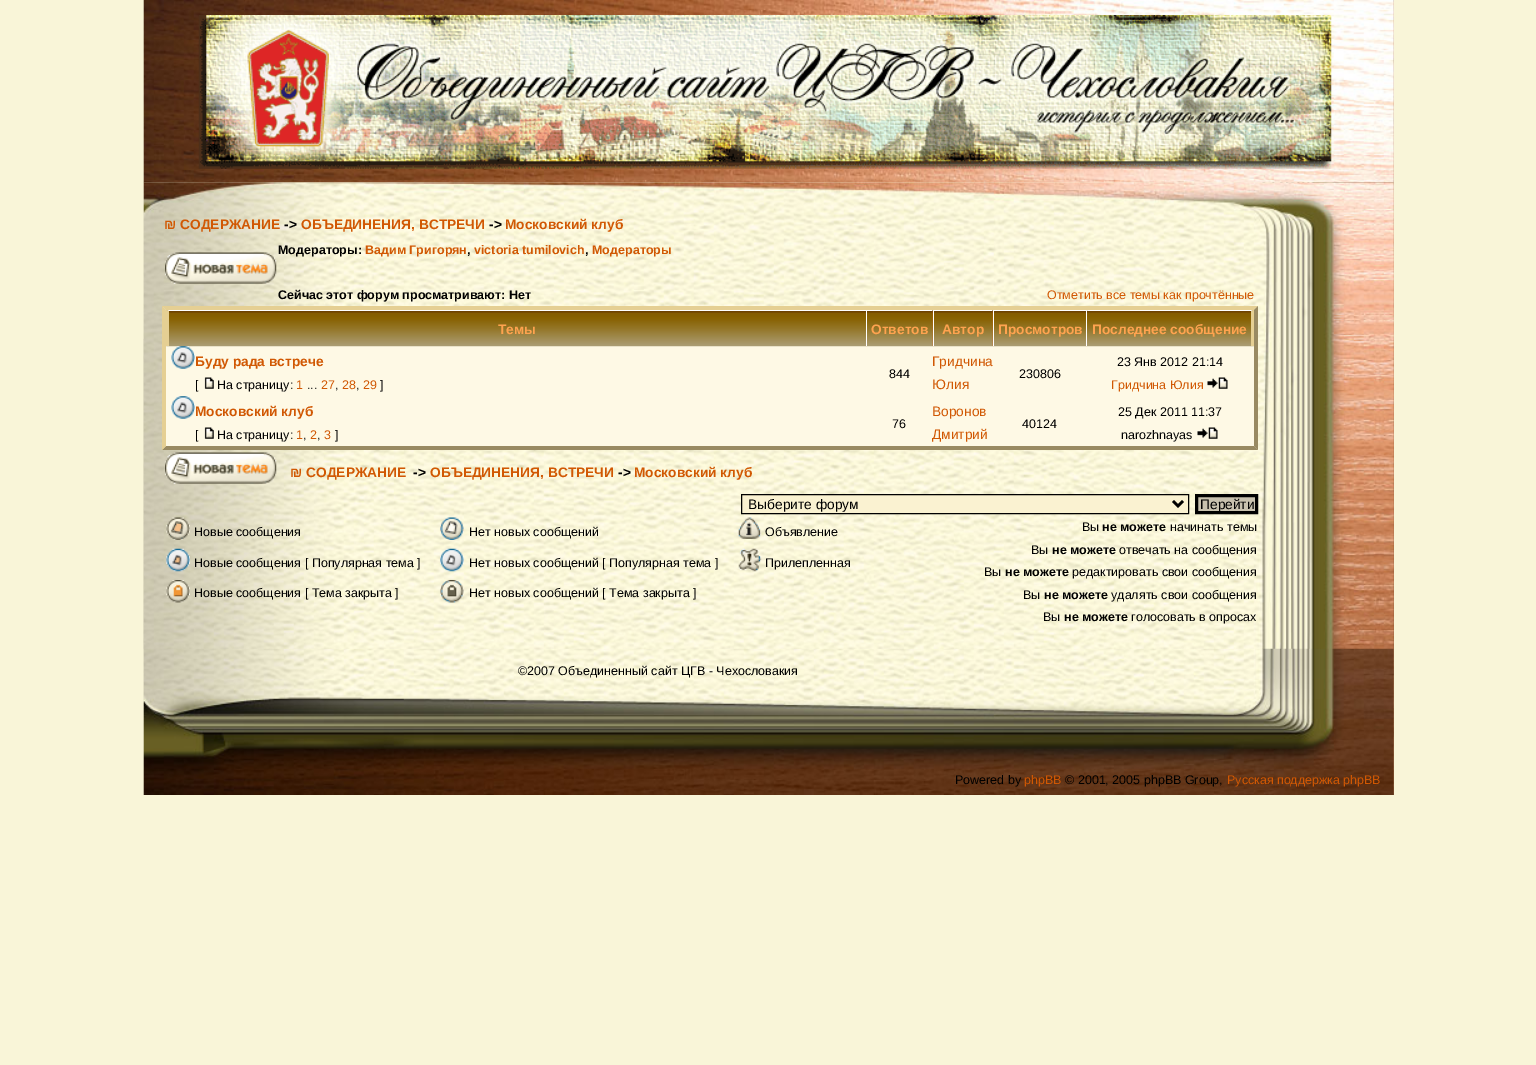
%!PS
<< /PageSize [1536 1065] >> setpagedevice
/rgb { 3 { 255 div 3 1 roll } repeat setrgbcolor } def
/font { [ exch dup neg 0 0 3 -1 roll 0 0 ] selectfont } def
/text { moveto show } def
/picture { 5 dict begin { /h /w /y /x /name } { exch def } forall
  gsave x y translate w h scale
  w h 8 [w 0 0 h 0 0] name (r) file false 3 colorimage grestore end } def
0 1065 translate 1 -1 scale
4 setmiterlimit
249 245 216 rgb
0 0 1536 1065 rectfill
(img_01.rgb) 143 0 1251 795 picture
(img_02.rgb) 143 338 1251 457 picture
(img_03.rgb) 143 0 1251 183 picture
(img_04.rgb) 198 15 1134 154 picture
(img_05.rgb) 143 182 1251 467 picture
(img_06.rgb) 165 252 112 32 picture
254 249 229 rgb
163 306 1095 144 rectfill
229 207 147 rgb
162 306 moveto 1096 0 rlineto -4 4 rlineto -1088 0 rlineto closepath fill
153 138 98 rgb
1258 306 moveto 0 144 rlineto -4 -4 rlineto 0 -136 rlineto closepath fill
1258 450 moveto -1096 0 rlineto 4 -4 rlineto 1088 0 rlineto closepath fill
229 207 147 rgb
162 450 moveto 0 -144 rlineto 4 4 rlineto 0 136 rlineto closepath fill
(img_07.rgb) 166 310 701 37 picture
255 255 255 rgb
166 310 moveto 700 0 rlineto 0 1 rlineto -697 0 rlineto closepath fill
229 207 147 rgb
166 346 moveto 0 -36 rlineto 3 1 rlineto 0 35 rlineto closepath fill
(img_08.rgb) 866 311 67 36 picture
255 255 255 rgb
866 310 67 1 rectfill
866 310 1 36 rectfill
(img_09.rgb) 932 310 61 37 picture
933 310 60 1 rectfill
933 310 1 36 rectfill
(img_10.rgb) 992 310 95 37 picture
993 310 93 1 rectfill
993 310 1 36 rectfill
(img_11.rgb) 1086 310 168 37 picture
1086 310 moveto 168 0 rlineto -3 1 rlineto -163 0 rlineto closepath fill
229 207 147 rgb
1254 310 moveto 0 36 rlineto -3 0 rlineto 0 -35 rlineto closepath fill
255 255 255 rgb
1086 310 1 36 rectfill
(img_12.rgb) 171 346 24 23 picture
(img_13.rgb) 204 377 10 12 picture
(img_14.rgb) 1207 377 21 12 picture
(img_15.rgb) 171 396 24 23 picture
(img_13.rgb) 204 427 10 12 picture
(img_14.rgb) 1197 427 21 12 picture
(img_16.rgb) 165 452 112 32 picture
250 242 209 rgb
741.5 494.5 moveto 447 0 rlineto 0 19 rlineto -447 0 rlineto closepath gsave fill grestore
0 0 0 rgb
stroke
2.5 setlinewidth
1173 501 moveto 5 5 rlineto 5 -5 rlineto stroke
201 194 175 rgb
1196.5 495.5 moveto 60 0 rlineto 0 17 rlineto -60 0 rlineto closepath gsave fill grestore
0 0 0 rgb
3 setlinewidth
stroke
(img_17.rgb) 166 517 24 23 picture
(img_18.rgb) 440 517 24 23 picture
(img_19.rgb) 737 517 25 22 picture
(img_20.rgb) 166 548 24 24 picture
(img_21.rgb) 440 548 24 24 picture
(img_22.rgb) 738 548 24 24 picture
(img_23.rgb) 166 580 24 23 picture
(img_24.rgb) 440 580 24 23 picture
/LiberationSans-Bold 13.75 font
209 88 3 rgb
(₪ СОДЕРЖАНИЕ) 164 229 text
0 0 0 rgb
(->) 284 229 text
209 88 3 rgb
(ОБЪЕДИНЕНИЯ, ВСТРЕЧИ) 301 229 text
0 0 0 rgb
(->) 489 229 text
209 88 3 rgb
(Московский клуб) 505 229 text
/LiberationSans-Bold 12.5 font
0 0 0 rgb
(Модераторы:) 278 254 text
209 88 3 rgb
(Вадим Григорян) 365 254 text
0 0 0 rgb
(,) 467 254 text
209 88 3 rgb
(victoria tumilovich) 474 254 text
0 0 0 rgb
(,) 585 254 text
209 88 3 rgb
(Модераторы) 592 254 text
0 0 0 rgb
(Сейчас этот форум просматривают: Нет) 278 299 text
/LiberationSans-Regular 12.5 font
209 88 3 rgb
(Отметить все темы как прочтённые) 1047 299 text
/LiberationSans-Bold 13.75 font
255 163 79 rgb
(Темы) 498 334 text
(Ответов) 871 334 text
(Автор) 942 334 text
(Просмотров) 998 334 text
(Последнее сообщение) 1092 334 text
209 88 3 rgb
(Буду рада встрече) 195 366 text
/LiberationSans-Regular 12.5 font
0 0 0 rgb
([) 195 389 text
(На страницу:) 217 389 text
209 88 3 rgb
(1) 296 389 text
0 0 0 rgb
(...) 307 389 text
209 88 3 rgb
(27) 321 389 text
0 0 0 rgb
(,) 335 389 text
209 88 3 rgb
(28) 342 389 text
0 0 0 rgb
(,) 356 389 text
209 88 3 rgb
(29) 363 389 text
0 0 0 rgb
(]) 380 389 text
(844) 889 378 text
/LiberationSans-Regular 13.75 font
209 88 3 rgb
(Гридчина) 932 366 text
(Юлия) 932 389 text
/LiberationSans-Regular 12.5 font
0 0 0 rgb
(230806) 1019 378 text
(23 Янв 2012 21:14) 1117 366 text
209 88 3 rgb
(Гридчина Юлия) 1111 389 text
/LiberationSans-Bold 13.75 font
(Московский клуб) 195 416 text
/LiberationSans-Regular 12.5 font
0 0 0 rgb
([) 195 439 text
(На страницу:) 217 439 text
209 88 3 rgb
(1) 296 439 text
0 0 0 rgb
(,) 303 439 text
209 88 3 rgb
(2) 310 439 text
0 0 0 rgb
(,) 317 439 text
209 88 3 rgb
(3) 324 439 text
0 0 0 rgb
(]) 335 439 text
(76) 892 428 text
/LiberationSans-Regular 13.75 font
209 88 3 rgb
(Воронов) 932 416 text
(Дмитрий) 932 439 text
/LiberationSans-Regular 12.5 font
0 0 0 rgb
(40124) 1022 428 text
(25 Дек 2011 11:37) 1118 416 text
(narozhnayas) 1121 439 text
/LiberationSans-Bold 13.75 font
209 88 3 rgb
(₪ СОДЕРЖАНИЕ) 290 477 text
0 0 0 rgb
(->) 413 477 text
209 88 3 rgb
(ОБЪЕДИНЕНИЯ, ВСТРЕЧИ) 430 477 text
0 0 0 rgb
(->) 618 477 text
209 88 3 rgb
(Московский клуб) 634 477 text
/LiberationSans-Regular 13.75 font
0 0 0 rgb
(Выберите форум) 748 509 text
(Перейти) 1200 509 text
/LiberationSans-Regular 12.5 font
(Новые сообщения) 194 536 text
(Нет новых сообщений) 469 536 text
(Объявление) 765 536 text
(Новые сообщения [ Популярная тема ]) 194 567 text
(Нет новых сообщений [ Популярная тема ]) 469 567 text
(Прилепленная) 765 567 text
(Новые сообщения [ Тема закрыта ]) 194 597 text
(Нет новых сообщений [ Тема закрыта ]) 469 597 text
(Вы) 1082 531 text
/LiberationSans-Bold 12.5 font
(не можете) 1102 531 text
/LiberationSans-Regular 12.5 font
(начинать темы) 1170 531 text
(Вы) 1031 554 text
/LiberationSans-Bold 12.5 font
(не можете) 1052 554 text
/LiberationSans-Regular 12.5 font
(отвечать на сообщения) 1119 554 text
(Вы) 984 576 text
/LiberationSans-Bold 12.5 font
(не можете) 1005 576 text
/LiberationSans-Regular 12.5 font
(редактировать свои сообщения) 1072 576 text
(Вы) 1023 599 text
/LiberationSans-Bold 12.5 font
(не можете) 1044 599 text
/LiberationSans-Regular 12.5 font
(удалять свои сообщения) 1111 599 text
(Вы) 1043 621 text
/LiberationSans-Bold 12.5 font
(не можете) 1064 621 text
/LiberationSans-Regular 12.5 font
(голосовать в опросах) 1131 621 text
(©2007 Объединенный сайт ЦГВ - Чехословакия) 518 675 text
(Powered by) 955 784 text
209 88 3 rgb
(phpBB) 1024 784 text
0 0 0 rgb
(© 2001, 2005 phpBB Group,) 1065 784 text
209 88 3 rgb
(Русская поддержка phpBB) 1227 784 text
showpage
